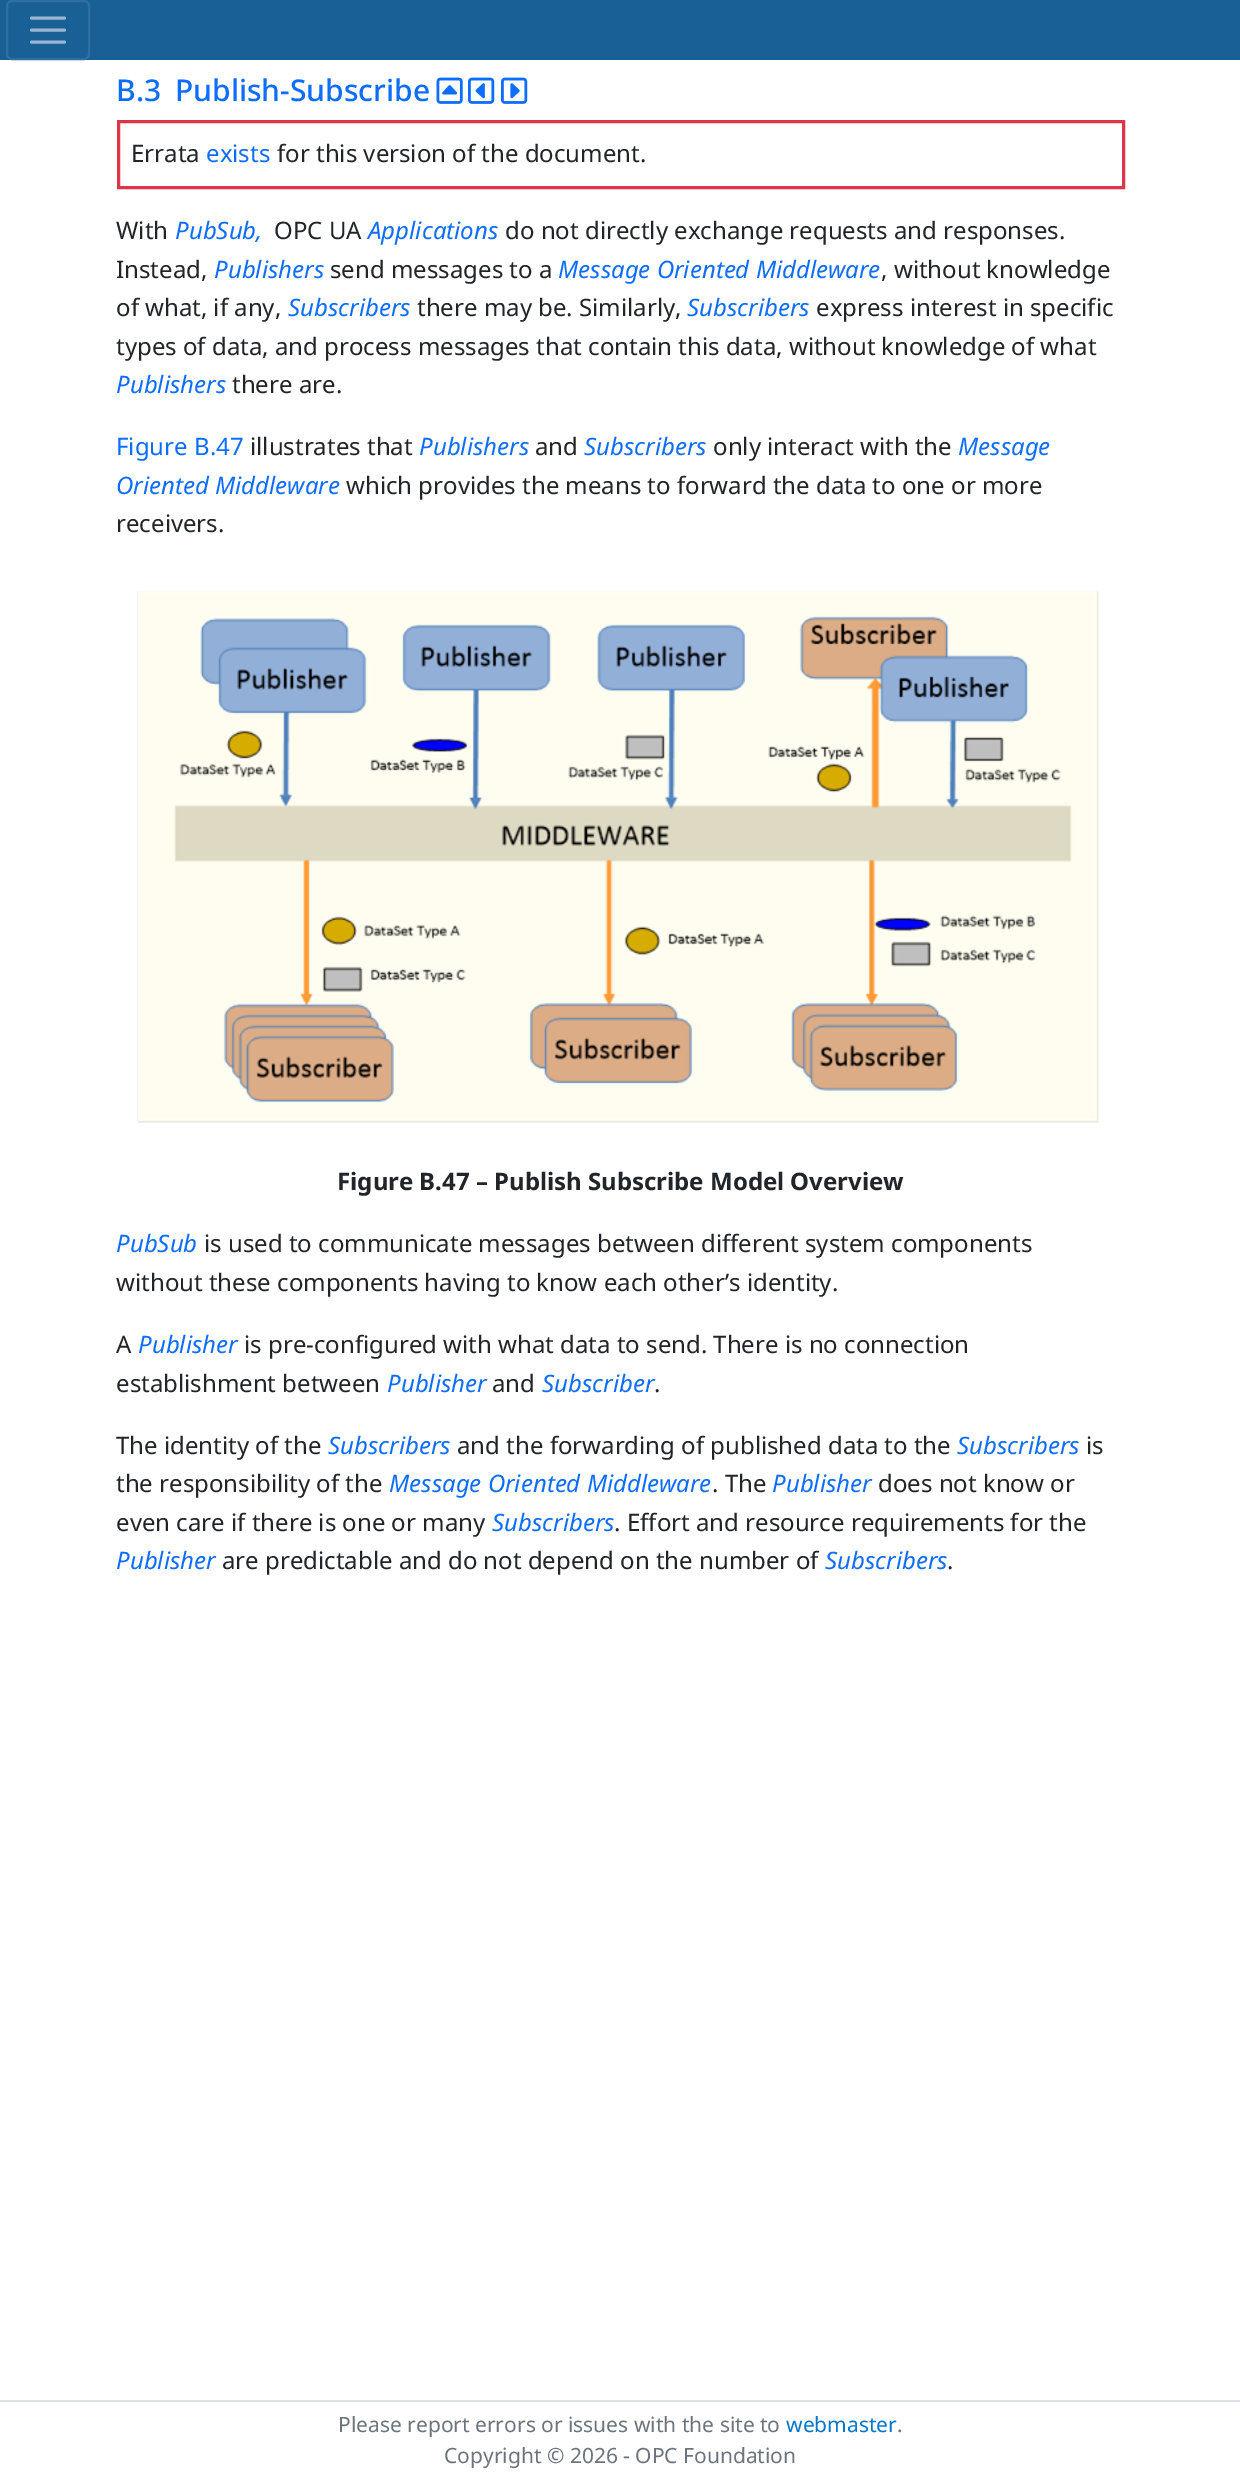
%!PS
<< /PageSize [1240 2476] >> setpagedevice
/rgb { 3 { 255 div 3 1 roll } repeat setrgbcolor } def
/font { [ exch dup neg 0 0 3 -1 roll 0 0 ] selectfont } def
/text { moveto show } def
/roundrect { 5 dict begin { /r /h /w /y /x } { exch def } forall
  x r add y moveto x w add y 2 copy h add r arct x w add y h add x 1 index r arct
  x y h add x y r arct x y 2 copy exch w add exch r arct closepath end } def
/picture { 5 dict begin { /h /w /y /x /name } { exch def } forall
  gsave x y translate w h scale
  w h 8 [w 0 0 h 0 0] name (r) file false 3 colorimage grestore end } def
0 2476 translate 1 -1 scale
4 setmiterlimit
255 255 255 rgb
0 0 1240 2476 rectfill
25 96 150 rgb
0 0 1240 60 rectfill
48 112 161 rgb
2 setlinewidth
7 1 82 58 5 roundrect stroke
152 183 208 rgb
3 setlinewidth
1 setlinecap
31.5 18 moveto 33 0 rlineto 31.5 30 moveto 33 0 rlineto 31.5 42 moveto 33 0 rlineto stroke
(img_01.rgb) 436 77 27 27 picture
(img_02.rgb) 468 77 27 27 picture
(img_03.rgb) 501 77 27 27 picture
220 53 69 rgb
0 setlinecap
118.5 121.5 1005 66 rectstroke
(img_04.rgb) 137 590 962 533 picture
222 226 230 rgb
0 2400 1240 2 rectfill
/NotoSans-Medium 30 font
13 110 253 rgb
(B.3) 116 101 text
(Publish-Subscribe) 175 101 text
/NotoSans-Regular 24 font
33 37 41 rgb
(Errata) 131 162 text
13 110 253 rgb
(exists) 206 162 text
33 37 41 rgb
(for this version of the document.) 277 162 text
(With) 116 239 text
/NotoSans-Italic 24 font
13 110 253 rgb
(PubSub,) 175 239 text
/NotoSans-Regular 24 font
33 37 41 rgb
(OPC UA) 274 239 text
/NotoSans-Italic 24 font
13 110 253 rgb
(Applications) 368 239 text
/NotoSans-Regular 24 font
33 37 41 rgb
(do not directly exchange requests and responses.) 505 239 text
(Instead,) 116 278 text
/NotoSans-Italic 24 font
13 110 253 rgb
(Publishers) 214 278 text
/NotoSans-Regular 24 font
33 37 41 rgb
(send messages to a) 330 278 text
/NotoSans-Italic 24 font
13 110 253 rgb
(Message Oriented Middleware) 558 278 text
/NotoSans-Regular 24 font
33 37 41 rgb
(, without knowledge) 881 278 text
(of what, if any,) 116 316 text
/NotoSans-Italic 24 font
13 110 253 rgb
(Subscribers) 288 316 text
/NotoSans-Regular 24 font
33 37 41 rgb
(there may be. Similarly,) 417 316 text
/NotoSans-Italic 24 font
13 110 253 rgb
(Subscribers) 687 316 text
/NotoSans-Regular 24 font
33 37 41 rgb
(express interest in specific) 816 316 text
(types of data, and process messages that contain this data, without knowledge of what) 116 355 text
/NotoSans-Italic 24 font
13 110 253 rgb
(Publishers) 116 393 text
/NotoSans-Regular 24 font
33 37 41 rgb
(there are.) 232 393 text
13 110 253 rgb
(Figure B.47) 116 455 text
33 37 41 rgb
(illustrates that) 250 455 text
/NotoSans-Italic 24 font
13 110 253 rgb
(Publishers) 419 455 text
/NotoSans-Regular 24 font
33 37 41 rgb
(and) 535 455 text
/NotoSans-Italic 24 font
13 110 253 rgb
(Subscribers) 584 455 text
/NotoSans-Regular 24 font
33 37 41 rgb
(only interact with the) 713 455 text
/NotoSans-Italic 24 font
13 110 253 rgb
(Message) 958 455 text
(Oriented Middleware) 116 494 text
/NotoSans-Regular 24 font
33 37 41 rgb
(which provides the means to forward the data to one or more) 346 494 text
(receivers.) 116 532 text
/NotoSans-Bold 24 font
(Figure B.47 – Publish Subscribe Model Overview) 337 1190 text
/NotoSans-Italic 24 font
13 110 253 rgb
(PubSub) 116 1252 text
/NotoSans-Regular 24 font
33 37 41 rgb
(is used to communicate messages between different system components) 204 1252 text
(without these components having to know each other’s identity.) 116 1291 text
(A) 116 1353 text
/NotoSans-Italic 24 font
13 110 253 rgb
(Publisher) 138 1353 text
/NotoSans-Regular 24 font
33 37 41 rgb
(is pre-configured with what data to send. There is no connection) 244 1353 text
(establishment between) 116 1392 text
/NotoSans-Italic 24 font
13 110 253 rgb
(Publisher) 387 1392 text
/NotoSans-Regular 24 font
33 37 41 rgb
(and) 492 1392 text
/NotoSans-Italic 24 font
13 110 253 rgb
(Subscriber) 542 1392 text
/NotoSans-Regular 24 font
33 37 41 rgb
(.) 654 1392 text
(The identity of the) 116 1454 text
/NotoSans-Italic 24 font
13 110 253 rgb
(Subscribers) 328 1454 text
/NotoSans-Regular 24 font
33 37 41 rgb
(and the forwarding of published data to the) 457 1454 text
/NotoSans-Italic 24 font
13 110 253 rgb
(Subscribers) 957 1454 text
/NotoSans-Regular 24 font
33 37 41 rgb
(is) 1086 1454 text
(the responsibility of the) 116 1492 text
/NotoSans-Italic 24 font
13 110 253 rgb
(Message Oriented Middleware) 389 1492 text
/NotoSans-Regular 24 font
33 37 41 rgb
(. The) 712 1492 text
/NotoSans-Italic 24 font
13 110 253 rgb
(Publisher) 772 1492 text
/NotoSans-Regular 24 font
33 37 41 rgb
(does not know or) 878 1492 text
(even care if there is one or many) 116 1531 text
/NotoSans-Italic 24 font
13 110 253 rgb
(Subscribers) 492 1531 text
/NotoSans-Regular 24 font
33 37 41 rgb
(. Effort and resource requirements for the) 614 1531 text
/NotoSans-Italic 24 font
13 110 253 rgb
(Publisher) 116 1569 text
/NotoSans-Regular 24 font
33 37 41 rgb
(are predictable and do not depend on the number of) 222 1569 text
/NotoSans-Italic 24 font
13 110 253 rgb
(Subscribers) 825 1569 text
/NotoSans-Regular 24 font
33 37 41 rgb
(.) 947 1569 text
/NotoSans-Regular 21 font
108 117 125 rgb
(Please report errors or issues with the site to) 338 2432 text
0 119 204 rgb
(webmaster) 786 2432 text
108 117 125 rgb
(.) 897 2432 text
(Copyright © 2026 - OPC Foundation) 444 2463 text
showpage
